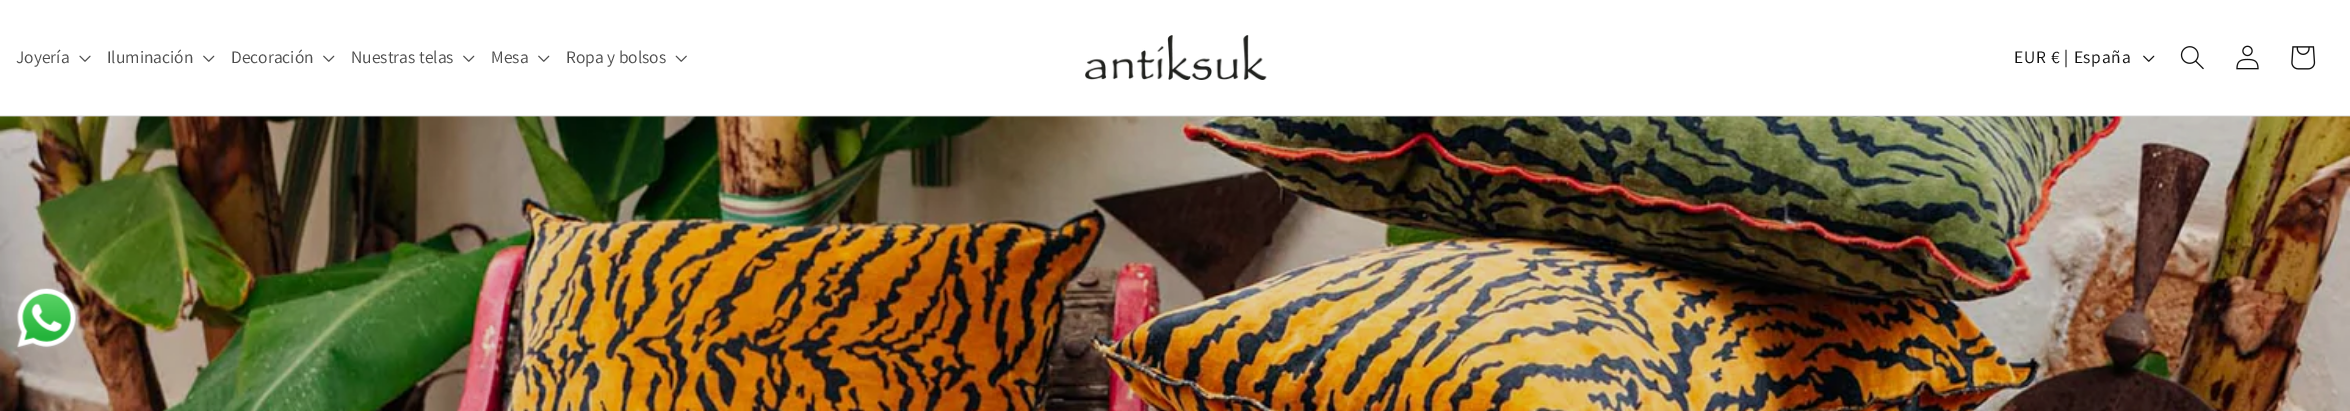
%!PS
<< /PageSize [2350 411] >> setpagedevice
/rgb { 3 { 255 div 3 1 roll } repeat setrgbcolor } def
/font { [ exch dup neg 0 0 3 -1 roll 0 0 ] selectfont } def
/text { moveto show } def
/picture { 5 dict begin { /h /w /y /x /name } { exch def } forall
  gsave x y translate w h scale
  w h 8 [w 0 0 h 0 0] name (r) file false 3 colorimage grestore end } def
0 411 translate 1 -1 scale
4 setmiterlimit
255 255 255 rgb
0 0 2350 411 rectfill
236 236 236 rgb
0 115 2350 1 rectfill
(img_01.rgb) 79 55 12 7 picture
(img_02.rgb) 203 55 12 7 picture
(img_02.rgb) 323 55 12 7 picture
(img_02.rgb) 463 55 12 7 picture
(img_02.rgb) 538 55 12 7 picture
(img_03.rgb) 675 55 12 7 picture
(img_04.rgb) 1085 35 182 45 picture
(img_05.rgb) 2143 55 12 7 picture
(img_06.rgb) 2180 46 24 24 picture
(img_07.rgb) 2236 45 23 25 picture
(img_08.rgb) 2291 46 25 24 picture
209 209 209 rgb
0 116 2350 1 rectfill
(img_09.rgb) 0 116 2350 295 picture
(img_10.rgb) 17 288 61 61 picture
/Assistant-Regular 17.5 font
77 77 77 rgb
(Joyería) 16 63 text
(Iluminación) 107 63 text
(Decoración) 231 63 text
(Nuestras telas) 351 63 text
(Mesa) 491 63 text
(Ropa y bolsos) 566 63 text
18 18 18 rgb
2014 63 moveto 0.75 0 (EUR € | España) ashow
showpage
